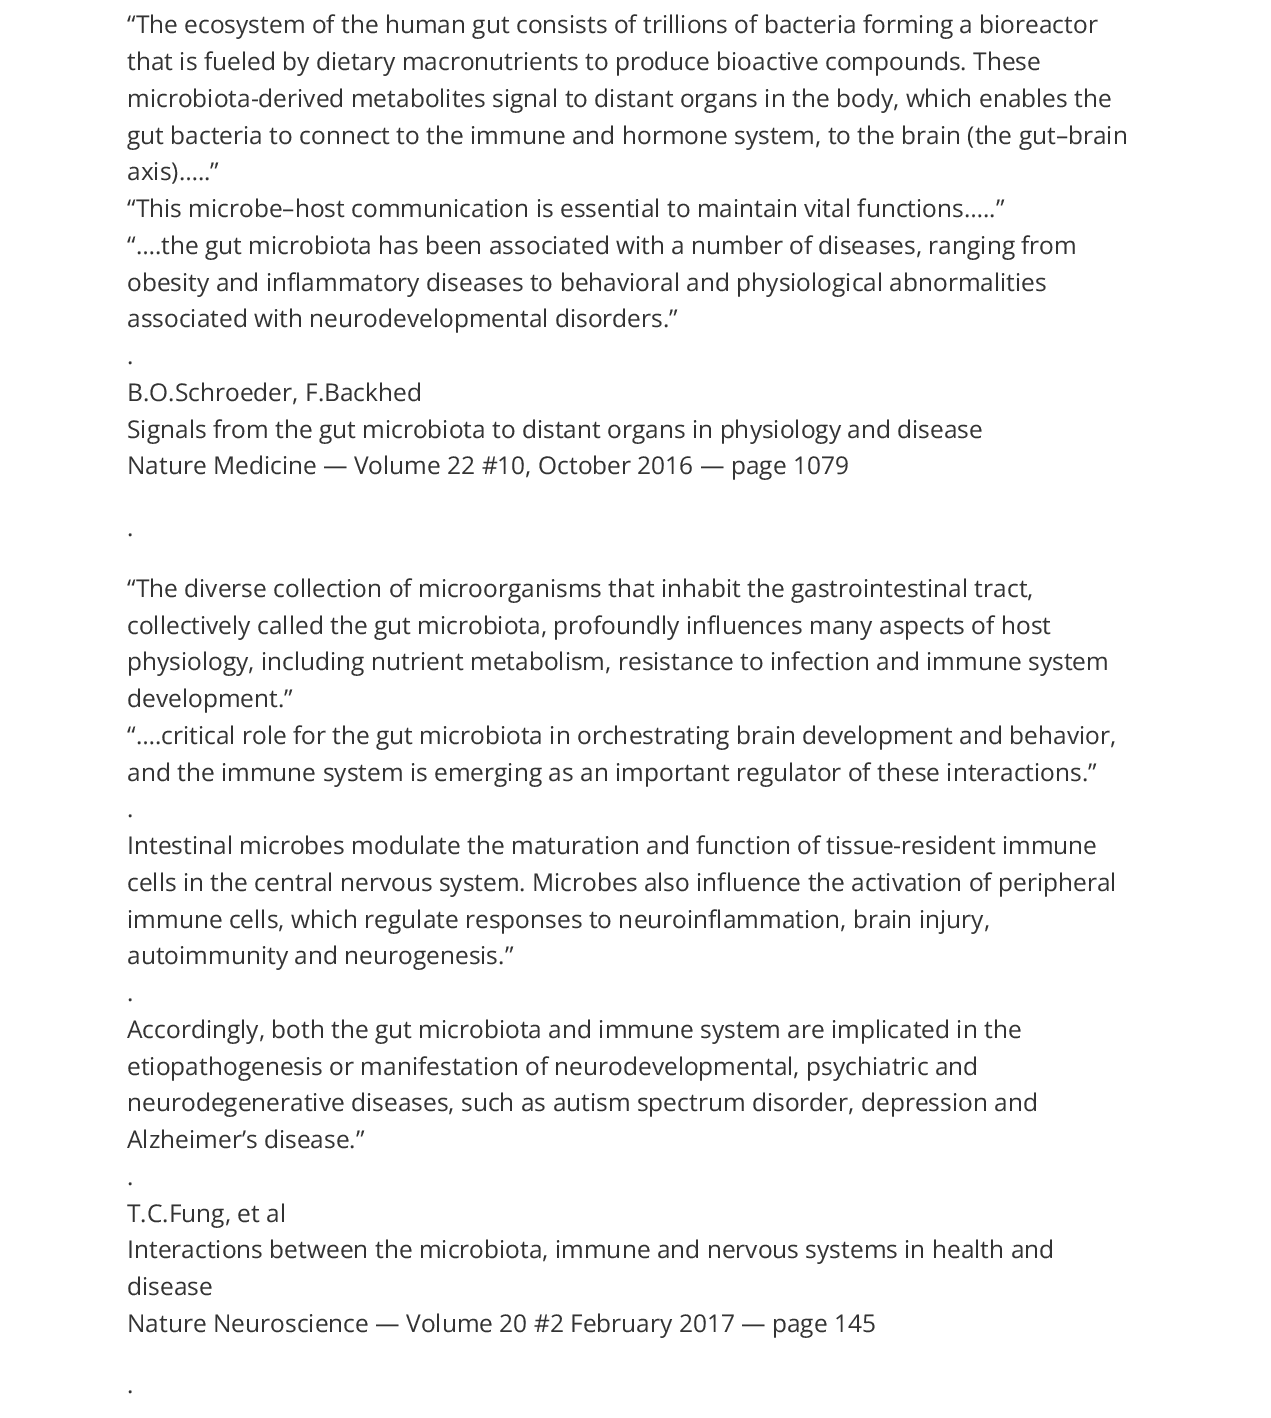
%!PS
<< /PageSize [1271 1418] >> setpagedevice
/rgb { 3 { 255 div 3 1 roll } repeat setrgbcolor } def
/font { [ exch dup neg 0 0 3 -1 roll 0 0 ] selectfont } def
/text { moveto show } def
0 1418 translate 1 -1 scale
4 setmiterlimit
255 255 255 rgb
0 0 1271 1418 rectfill
/OpenSans-Regular 24.5 font
51 51 51 rgb
(“The ecosystem of the human gut consists of trillions of bacteria forming a bioreactor) 127 33 text
(that is fueled by dietary macronutrients to produce bioactive compounds. These) 127 70 text
(microbiota-derived metabolites signal to distant organs in the body, which enables the) 127 107 text
(gut bacteria to connect to the immune and hormone system, to the brain \(the gut–brain) 127 144 text
(axis\)…..”) 127 180 text
(“This microbe–host communication is essential to maintain vital functions…..”) 127 217 text
(“….the gut microbiota has been associated with a number of diseases, ranging from) 127 254 text
(obesity and inflammatory diseases to behavioral and physiological abnormalities) 127 291 text
(associated with neurodevelopmental disorders.”) 127 327 text
(.) 127 364 text
(B.O.Schroeder, F.Backhed) 127 401 text
(Signals from the gut microbiota to distant organs in physiology and disease) 127 438 text
(Nature Medicine — Volume 22 #10, October 2016 — page 1079) 127 474 text
(.) 127 536 text
(“The diverse collection of microorganisms that inhabit the gastrointestinal tract,) 127 597 text
(collectively called the gut microbiota, profoundly influences many aspects of host) 127 634 text
(physiology, including nutrient metabolism, resistance to infection and immune system) 127 670 text
(development.”) 127 707 text
(“….critical role for the gut microbiota in orchestrating brain development and behavior,) 127 744 text
(and the immune system is emerging as an important regulator of these interactions.”) 127 781 text
(.) 127 817 text
(Intestinal microbes modulate the maturation and function of tissue-resident immune) 127 854 text
(cells in the central nervous system. Microbes also influence the activation of peripheral) 127 891 text
(immune cells, which regulate responses to neuroinflammation, brain injury,) 127 928 text
(autoimmunity and neurogenesis.”) 127 964 text
(.) 127 1001 text
(Accordingly, both the gut microbiota and immune system are implicated in the) 127 1038 text
(etiopathogenesis or manifestation of neurodevelopmental, psychiatric and) 127 1075 text
(neurodegenerative diseases, such as autism spectrum disorder, depression and) 127 1111 text
(Alzheimer’s disease.”) 127 1148 text
(.) 127 1185 text
(T.C.Fung, et al) 127 1222 text
(Interactions between the microbiota, immune and nervous systems in health and) 127 1258 text
(disease) 127 1295 text
(Nature Neuroscience — Volume 20 #2 February 2017 — page 145) 127 1332 text
(.) 127 1393 text
showpage
